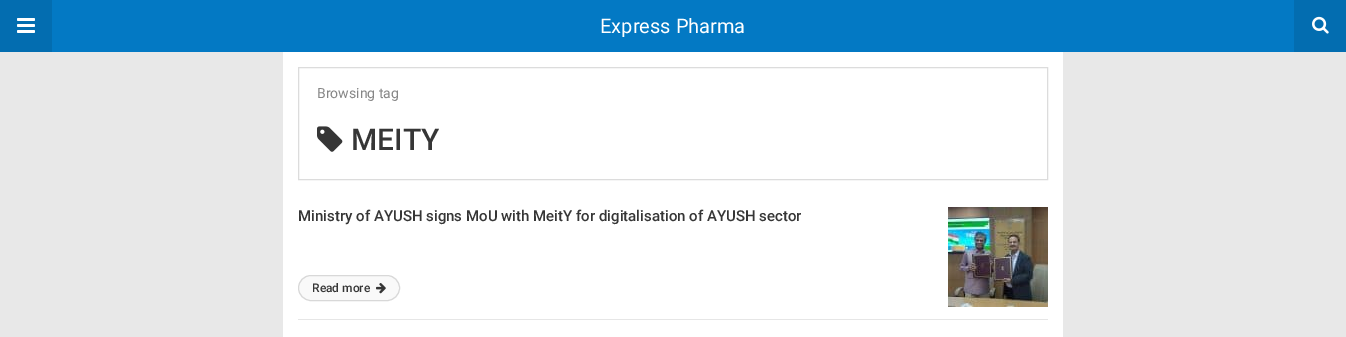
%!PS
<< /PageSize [1346 337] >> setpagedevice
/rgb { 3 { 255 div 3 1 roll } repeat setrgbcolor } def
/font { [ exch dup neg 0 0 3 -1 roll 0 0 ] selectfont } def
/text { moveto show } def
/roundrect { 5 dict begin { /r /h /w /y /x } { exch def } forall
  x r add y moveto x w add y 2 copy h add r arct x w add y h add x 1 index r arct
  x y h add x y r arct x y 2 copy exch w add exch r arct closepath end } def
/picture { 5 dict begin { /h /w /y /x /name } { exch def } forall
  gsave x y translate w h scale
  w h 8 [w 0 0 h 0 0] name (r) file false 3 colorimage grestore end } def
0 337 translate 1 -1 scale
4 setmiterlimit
232 232 232 rgb
0 0 1346 337 rectfill
255 255 255 rgb
283 52 780 285 rectfill
3 121 196 rgb
52 0 1242 52 rectfill
3 109 176 rgb
0 0 52 52 rectfill
(img_01.rgb) 17 18 18 15 picture
1294 0 52 52 rectfill
(img_02.rgb) 1312 16 17 18 picture
220 220 220 rgb
298.5 67.5 749 112 rectstroke
(img_03.rgb) 317 126 26 26 picture
230 230 230 rgb
298 319 750 1 rectfill
(img_04.rgb) 948 207 100 100 picture
249 249 249 rgb
298.5 275.5 101 25 12.5 roundrect gsave fill grestore
216 216 216 rgb
stroke
(img_05.rgb) 376 283 10 11 picture
/Roboto-Regular 20 font
255 255 255 rgb
(Express Pharma) 600 33 text
/Roboto-Regular 14 font
134 134 134 rgb
(Browsing tag) 317 98 text
/Roboto-Medium 30 font
54 54 54 rgb
(MEITY) 351 150 text
/Roboto-Medium 15 font
(Ministry of AYUSH signs MoU with MeitY for digitalisation of AYUSH sector) 298 221 text
/Roboto-Medium 12 font
(Read more) 312 292 text
showpage
